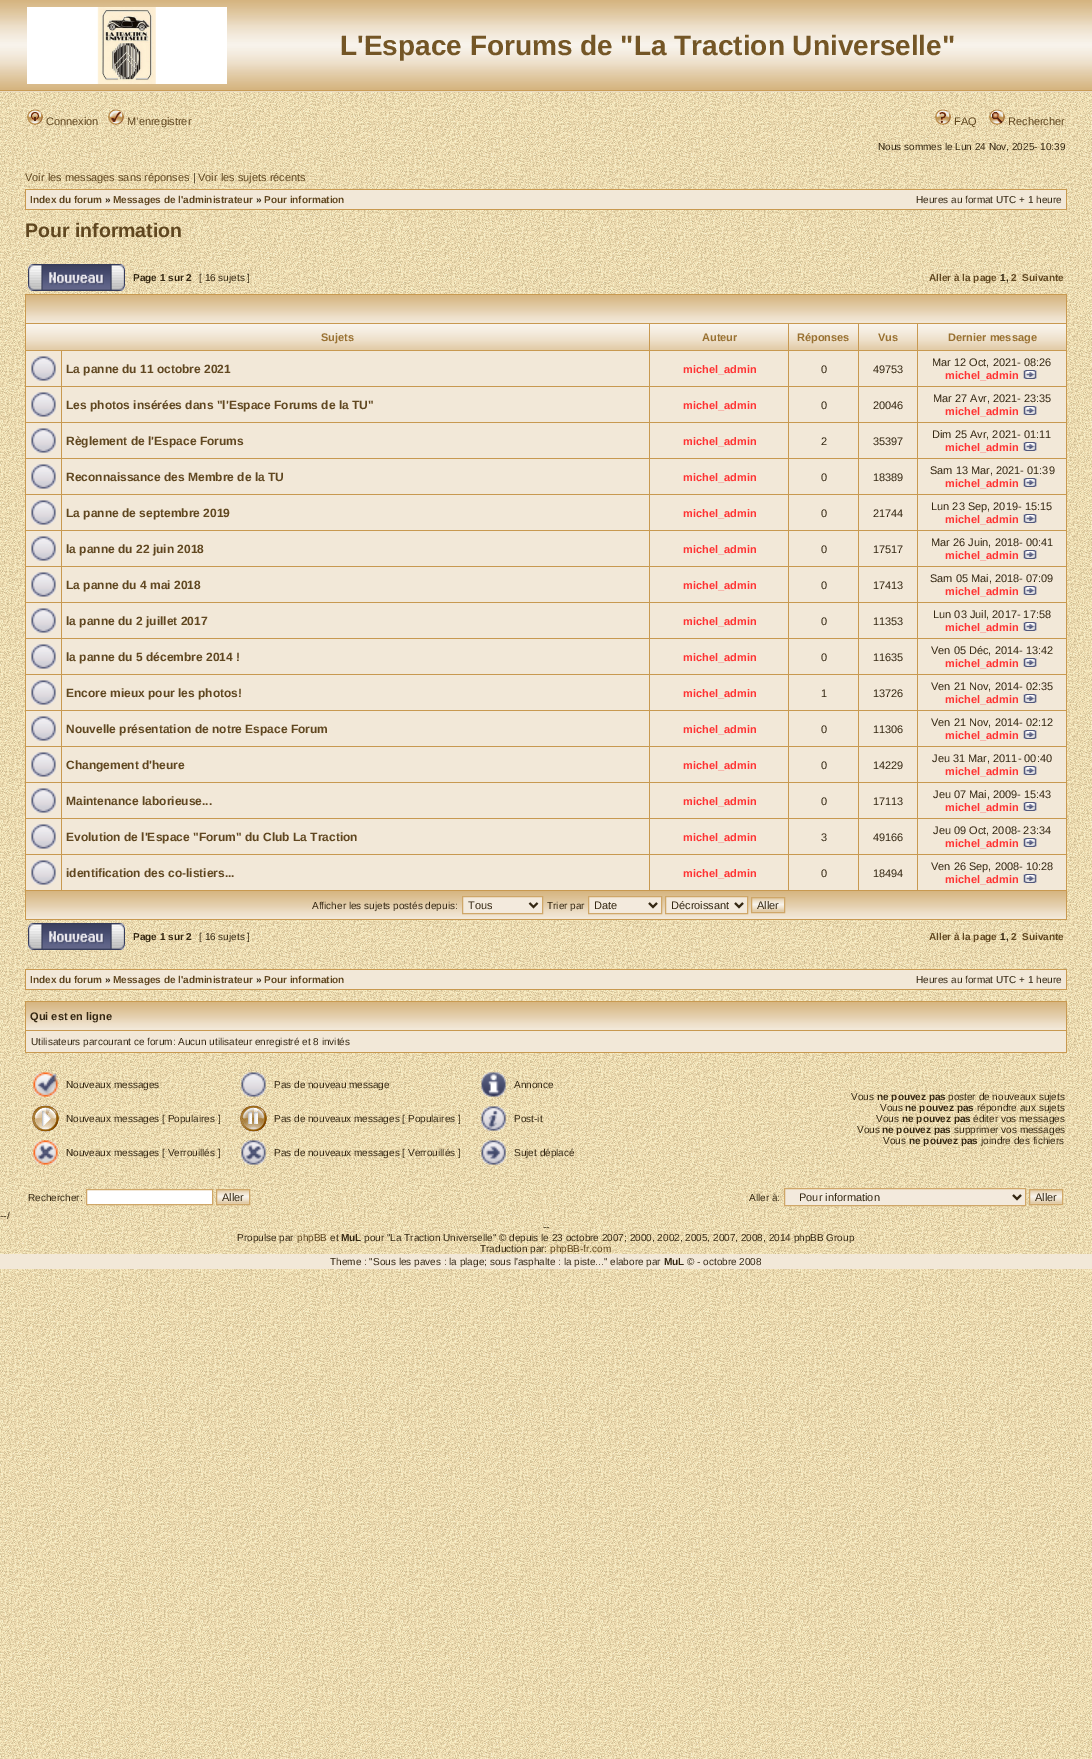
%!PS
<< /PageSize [1092 1759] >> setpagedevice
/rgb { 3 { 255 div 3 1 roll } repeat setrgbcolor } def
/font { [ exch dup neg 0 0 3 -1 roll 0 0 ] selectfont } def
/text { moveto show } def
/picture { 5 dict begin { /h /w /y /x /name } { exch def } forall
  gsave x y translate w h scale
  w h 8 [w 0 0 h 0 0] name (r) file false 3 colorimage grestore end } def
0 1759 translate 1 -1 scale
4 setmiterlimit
255 255 255 rgb
0 0 1092 1759 rectfill
(img_01.rgb) 0 92 1092 1667 picture
(img_02.rgb) 0 0 1092 92 picture
(img_03.rgb) 27 7 200 77 picture
(img_04.rgb) 27 109 16 16 picture
(img_05.rgb) 108 109 16 16 picture
(img_06.rgb) 935 109 16 16 picture
(img_07.rgb) 989 109 16 16 picture
200 153 80 rgb
25 189 1042 21 rectfill
242 232 216 rgb
26 190 1040 19 rectfill
(img_08.rgb) 28 264 97 27 picture
200 153 80 rgb
25 294 1042 626 rectfill
242 232 216 rgb
26 321 1040 2 rectfill
(img_09.rgb) 26 295 1040 26 picture
(img_10.rgb) 26 324 623 26 picture
(img_11.rgb) 650 324 138 26 picture
(img_12.rgb) 789 324 69 26 picture
(img_13.rgb) 859 324 58 26 picture
(img_14.rgb) 918 324 148 26 picture
26 351 35 35 rectfill
(img_15.rgb) 31 356 25 25 picture
62 351 587 35 rectfill
650 351 138 35 rectfill
789 351 69 35 rectfill
859 351 58 35 rectfill
918 351 148 35 rectfill
(img_16.rgb) 1023 370 14 9 picture
26 387 35 35 rectfill
(img_15.rgb) 31 392 25 25 picture
62 387 587 35 rectfill
650 387 138 35 rectfill
789 387 69 35 rectfill
859 387 58 35 rectfill
918 387 148 35 rectfill
(img_16.rgb) 1023 406 14 9 picture
26 423 35 35 rectfill
(img_15.rgb) 31 428 25 25 picture
62 423 587 35 rectfill
650 423 138 35 rectfill
789 423 69 35 rectfill
859 423 58 35 rectfill
918 423 148 35 rectfill
(img_16.rgb) 1023 442 14 9 picture
26 459 35 35 rectfill
(img_15.rgb) 31 464 25 25 picture
62 459 587 35 rectfill
650 459 138 35 rectfill
789 459 69 35 rectfill
859 459 58 35 rectfill
918 459 148 35 rectfill
(img_16.rgb) 1023 478 14 9 picture
26 495 35 35 rectfill
(img_15.rgb) 31 500 25 25 picture
62 495 587 35 rectfill
650 495 138 35 rectfill
789 495 69 35 rectfill
859 495 58 35 rectfill
918 495 148 35 rectfill
(img_16.rgb) 1023 514 14 9 picture
26 531 35 35 rectfill
(img_15.rgb) 31 536 25 25 picture
62 531 587 35 rectfill
650 531 138 35 rectfill
789 531 69 35 rectfill
859 531 58 35 rectfill
918 531 148 35 rectfill
(img_16.rgb) 1023 550 14 9 picture
26 567 35 35 rectfill
(img_15.rgb) 31 572 25 25 picture
62 567 587 35 rectfill
650 567 138 35 rectfill
789 567 69 35 rectfill
859 567 58 35 rectfill
918 567 148 35 rectfill
(img_16.rgb) 1023 586 14 9 picture
26 603 35 35 rectfill
(img_15.rgb) 31 608 25 25 picture
62 603 587 35 rectfill
650 603 138 35 rectfill
789 603 69 35 rectfill
859 603 58 35 rectfill
918 603 148 35 rectfill
(img_16.rgb) 1023 622 14 9 picture
26 639 35 35 rectfill
(img_15.rgb) 31 644 25 25 picture
62 639 587 35 rectfill
650 639 138 35 rectfill
789 639 69 35 rectfill
859 639 58 35 rectfill
918 639 148 35 rectfill
(img_16.rgb) 1023 658 14 9 picture
26 675 35 35 rectfill
(img_15.rgb) 31 680 25 25 picture
62 675 587 35 rectfill
650 675 138 35 rectfill
789 675 69 35 rectfill
859 675 58 35 rectfill
918 675 148 35 rectfill
(img_16.rgb) 1023 694 14 9 picture
26 711 35 35 rectfill
(img_15.rgb) 31 716 25 25 picture
62 711 587 35 rectfill
650 711 138 35 rectfill
789 711 69 35 rectfill
859 711 58 35 rectfill
918 711 148 35 rectfill
(img_16.rgb) 1023 730 14 9 picture
26 747 35 35 rectfill
(img_15.rgb) 31 752 25 25 picture
62 747 587 35 rectfill
650 747 138 35 rectfill
789 747 69 35 rectfill
859 747 58 35 rectfill
918 747 148 35 rectfill
(img_16.rgb) 1023 766 14 9 picture
26 783 35 35 rectfill
(img_15.rgb) 31 788 25 25 picture
62 783 587 35 rectfill
650 783 138 35 rectfill
789 783 69 35 rectfill
859 783 58 35 rectfill
918 783 148 35 rectfill
(img_16.rgb) 1023 802 14 9 picture
26 819 35 35 rectfill
(img_15.rgb) 31 824 25 25 picture
62 819 587 35 rectfill
650 819 138 35 rectfill
789 819 69 35 rectfill
859 819 58 35 rectfill
918 819 148 35 rectfill
(img_16.rgb) 1023 838 14 9 picture
26 855 35 35 rectfill
(img_15.rgb) 31 860 25 25 picture
62 855 587 35 rectfill
650 855 138 35 rectfill
789 855 69 35 rectfill
859 855 58 35 rectfill
918 855 148 35 rectfill
(img_16.rgb) 1023 874 14 9 picture
26 917 1040 2 rectfill
(img_09.rgb) 26 891 1040 26 picture
243 234 221 rgb
462.5 896.5 moveto 80 0 rlineto 0 17 rlineto -80 0 rlineto closepath gsave fill grestore
207 167 105 rgb
stroke
52 39 18 rgb
2 setlinewidth
529.5 903 moveto 4 4 rlineto 4 -4 rlineto stroke
243 234 221 rgb
588.5 896.5 moveto 73 0 rlineto 0 17 rlineto -73 0 rlineto closepath gsave fill grestore
207 167 105 rgb
1 setlinewidth
stroke
52 39 18 rgb
2 setlinewidth
649 903 moveto 4 4 rlineto 4 -4 rlineto stroke
243 234 221 rgb
665.5 896.5 moveto 82 0 rlineto 0 17 rlineto -82 0 rlineto closepath gsave fill grestore
207 167 105 rgb
1 setlinewidth
stroke
52 39 18 rgb
2 setlinewidth
735 903 moveto 4 4 rlineto 4 -4 rlineto stroke
(img_17.rgb) 752 898 32 14 picture
207 167 105 rgb
1 setlinewidth
751.5 897.5 33 15 rectstroke
(img_18.rgb) 28 923 97 27 picture
200 153 80 rgb
25 969 1042 21 rectfill
242 232 216 rgb
26 970 1040 19 rectfill
200 153 80 rgb
25 1001 1042 52 rectfill
242 232 216 rgb
26 1028 1040 2 rectfill
(img_09.rgb) 26 1002 1040 26 picture
26 1031 1040 21 rectfill
(img_19.rgb) 33 1072 25 25 picture
(img_20.rgb) 241 1072 25 25 picture
(img_21.rgb) 481 1072 25 25 picture
(img_22.rgb) 32 1105 27 27 picture
(img_23.rgb) 240 1105 27 27 picture
(img_24.rgb) 481 1106 25 25 picture
(img_25.rgb) 33 1140 25 25 picture
(img_26.rgb) 241 1140 25 25 picture
(img_27.rgb) 481 1140 25 25 picture
255 255 255 rgb
86.5 1189.5 moveto 126 0 rlineto 0 15 rlineto -126 0 rlineto closepath gsave fill grestore
207 167 105 rgb
stroke
(img_17.rgb) 217 1190 32 14 picture
216.5 1189.5 33 15 rectstroke
243 234 221 rgb
784.5 1188.5 moveto 241 0 rlineto 0 17 rlineto -241 0 rlineto closepath gsave fill grestore
207 167 105 rgb
stroke
52 39 18 rgb
2 setlinewidth
1013 1195 moveto 4 4 rlineto 4 -4 rlineto stroke
(img_17.rgb) 1030 1190 32 14 picture
207 167 105 rgb
1 setlinewidth
1029.5 1189.5 33 15 rectstroke
242 232 216 rgb
0 1254 1092 15 rectfill
/LiberationSans-Bold 28 font
116 86 38 rgb
(L'Espace Forums de "La Traction Universelle") 340 55 text
/LiberationSans-Regular 11 font
96 71 32 rgb
(Connexion) 46 125 text
(M’enregistrer) 127 125 text
(FAQ) 954 125 text
(Rechercher) 1008 125 text
/LiberationSans-Regular 10 font
52 39 18 rgb
(Nous sommes le Lun 24 Nov, 2025- 10:39) 878 150 text
/LiberationSans-Regular 11 font
96 71 32 rgb
(Voir les messages sans réponses) 25 181 text
52 39 18 rgb
(|) 193 181 text
96 71 32 rgb
(Voir les sujets récents) 198 181 text
/LiberationSans-Bold 10 font
(Index du forum) 30 203 text
52 39 18 rgb
(») 105 203 text
96 71 32 rgb
(Messages de l'administrateur) 113 203 text
52 39 18 rgb
(») 256 203 text
96 71 32 rgb
(Pour information) 264 203 text
/LiberationSans-Regular 10 font
52 39 18 rgb
(Heures au format UTC + 1 heure) 916 203 text
/LiberationSans-Bold 19.5 font
96 71 32 rgb
(Pour information) 25 237 text
/LiberationSans-Bold 10 font
52 39 18 rgb
(Page 1 sur 2) 133 281 text
/LiberationSans-Regular 10 font
([ 16 sujets ]) 199 281 text
/LiberationSans-Bold 10 font
96 71 32 rgb
(Aller à la page) 929 281 text
52 39 18 rgb
(1,) 1000 281 text
96 71 32 rgb
(2) 1011 281 text
(Suivante) 1022 281 text
/LiberationSans-Bold 11 font
153 113 49 rgb
(Sujets) 321 341 text
(Auteur) 702 341 text
(Réponses) 797 341 text
(Vus) 878 341 text
(Dernier message) 948 341 text
/LiberationSans-Bold 12 font
96 71 32 rgb
(La panne du 11 octobre 2021) 66 373 text
/LiberationSans-Bold 11 font
255 51 51 rgb
(michel_admin) 683 373 text
/LiberationSans-Regular 11 font
52 39 18 rgb
(0) 821 373 text
(49753) 873 373 text
(Mar 12 Oct, 2021- 08:26) 932 366 text
/LiberationSans-Bold 11 font
255 51 51 rgb
(michel_admin) 945 379 text
/LiberationSans-Bold 12 font
96 71 32 rgb
(Les photos insérées dans "l'Espace Forums de la TU") 66 409 text
/LiberationSans-Bold 11 font
255 51 51 rgb
(michel_admin) 683 409 text
/LiberationSans-Regular 11 font
52 39 18 rgb
(0) 821 409 text
(20046) 873 409 text
(Mar 27 Avr, 2021- 23:35) 933 402 text
/LiberationSans-Bold 11 font
255 51 51 rgb
(michel_admin) 945 415 text
/LiberationSans-Bold 12 font
96 71 32 rgb
(Règlement de l'Espace Forums) 66 445 text
/LiberationSans-Bold 11 font
255 51 51 rgb
(michel_admin) 683 445 text
/LiberationSans-Regular 11 font
52 39 18 rgb
(2) 821 445 text
(35397) 873 445 text
(Dim 25 Avr, 2021- 01:11) 932 438 text
/LiberationSans-Bold 11 font
255 51 51 rgb
(michel_admin) 945 451 text
/LiberationSans-Bold 12 font
96 71 32 rgb
(Reconnaissance des Membre de la TU) 66 481 text
/LiberationSans-Bold 11 font
255 51 51 rgb
(michel_admin) 683 481 text
/LiberationSans-Regular 11 font
52 39 18 rgb
(0) 821 481 text
(18389) 873 481 text
(Sam 13 Mar, 2021- 01:39) 930 474 text
/LiberationSans-Bold 11 font
255 51 51 rgb
(michel_admin) 945 487 text
/LiberationSans-Bold 12 font
96 71 32 rgb
(La panne de septembre 2019) 66 517 text
/LiberationSans-Bold 11 font
255 51 51 rgb
(michel_admin) 683 517 text
/LiberationSans-Regular 11 font
52 39 18 rgb
(0) 821 517 text
(21744) 873 517 text
(Lun 23 Sep, 2019- 15:15) 931 510 text
/LiberationSans-Bold 11 font
255 51 51 rgb
(michel_admin) 945 523 text
/LiberationSans-Bold 12 font
96 71 32 rgb
(la panne du 22 juin 2018) 66 553 text
/LiberationSans-Bold 11 font
255 51 51 rgb
(michel_admin) 683 553 text
/LiberationSans-Regular 11 font
52 39 18 rgb
(0) 821 553 text
(17517) 873 553 text
(Mar 26 Juin, 2018- 00:41) 931 546 text
/LiberationSans-Bold 11 font
255 51 51 rgb
(michel_admin) 945 559 text
/LiberationSans-Bold 12 font
96 71 32 rgb
(La panne du 4 mai 2018) 66 589 text
/LiberationSans-Bold 11 font
255 51 51 rgb
(michel_admin) 683 589 text
/LiberationSans-Regular 11 font
52 39 18 rgb
(0) 821 589 text
(17413) 873 589 text
(Sam 05 Mai, 2018- 07:09) 930 582 text
/LiberationSans-Bold 11 font
255 51 51 rgb
(michel_admin) 945 595 text
/LiberationSans-Bold 12 font
96 71 32 rgb
(la panne du 2 juillet 2017) 66 625 text
/LiberationSans-Bold 11 font
255 51 51 rgb
(michel_admin) 683 625 text
/LiberationSans-Regular 11 font
52 39 18 rgb
(0) 821 625 text
(11353) 873 625 text
(Lun 03 Juil, 2017- 17:58) 933 618 text
/LiberationSans-Bold 11 font
255 51 51 rgb
(michel_admin) 945 631 text
/LiberationSans-Bold 12 font
96 71 32 rgb
(la panne du 5 décembre 2014 !) 66 661 text
/LiberationSans-Bold 11 font
255 51 51 rgb
(michel_admin) 683 661 text
/LiberationSans-Regular 11 font
52 39 18 rgb
(0) 821 661 text
(11635) 873 661 text
(Ven 05 Déc, 2014- 13:42) 931 654 text
/LiberationSans-Bold 11 font
255 51 51 rgb
(michel_admin) 945 667 text
/LiberationSans-Bold 12 font
96 71 32 rgb
(Encore mieux pour les photos!) 66 697 text
/LiberationSans-Bold 11 font
255 51 51 rgb
(michel_admin) 683 697 text
/LiberationSans-Regular 11 font
52 39 18 rgb
(1) 821 697 text
(13726) 873 697 text
(Ven 21 Nov, 2014- 02:35) 931 690 text
/LiberationSans-Bold 11 font
255 51 51 rgb
(michel_admin) 945 703 text
/LiberationSans-Bold 12 font
96 71 32 rgb
(Nouvelle présentation de notre Espace Forum) 66 733 text
/LiberationSans-Bold 11 font
255 51 51 rgb
(michel_admin) 683 733 text
/LiberationSans-Regular 11 font
52 39 18 rgb
(0) 821 733 text
(11306) 873 733 text
(Ven 21 Nov, 2014- 02:12) 931 726 text
/LiberationSans-Bold 11 font
255 51 51 rgb
(michel_admin) 945 739 text
/LiberationSans-Bold 12 font
96 71 32 rgb
(Changement d'heure) 66 769 text
/LiberationSans-Bold 11 font
255 51 51 rgb
(michel_admin) 683 769 text
/LiberationSans-Regular 11 font
52 39 18 rgb
(0) 821 769 text
(14229) 873 769 text
(Jeu 31 Mar, 2011- 00:40) 932 762 text
/LiberationSans-Bold 11 font
255 51 51 rgb
(michel_admin) 945 775 text
/LiberationSans-Bold 12 font
96 71 32 rgb
(Maintenance laborieuse...) 66 805 text
/LiberationSans-Bold 11 font
255 51 51 rgb
(michel_admin) 683 805 text
/LiberationSans-Regular 11 font
52 39 18 rgb
(0) 821 805 text
(17113) 873 805 text
(Jeu 07 Mai, 2009- 15:43) 933 798 text
/LiberationSans-Bold 11 font
255 51 51 rgb
(michel_admin) 945 811 text
/LiberationSans-Bold 12 font
96 71 32 rgb
(Evolution de l'Espace "Forum" du Club La Traction) 66 841 text
/LiberationSans-Bold 11 font
255 51 51 rgb
(michel_admin) 683 841 text
/LiberationSans-Regular 11 font
52 39 18 rgb
(3) 821 841 text
(49166) 873 841 text
(Jeu 09 Oct, 2008- 23:34) 933 834 text
/LiberationSans-Bold 11 font
255 51 51 rgb
(michel_admin) 945 847 text
/LiberationSans-Bold 12 font
96 71 32 rgb
(identification des co-listiers...) 66 877 text
/LiberationSans-Bold 11 font
255 51 51 rgb
(michel_admin) 683 877 text
/LiberationSans-Regular 11 font
52 39 18 rgb
(0) 821 877 text
(18494) 873 877 text
(Ven 26 Sep, 2008- 10:28) 931 870 text
/LiberationSans-Bold 11 font
255 51 51 rgb
(michel_admin) 945 883 text
/LiberationSans-Regular 10 font
52 39 18 rgb
(Afficher les sujets postés depuis:) 312 909 text
/LiberationSans-Regular 11 font
(Tous) 468 909 text
/LiberationSans-Regular 10 font
(Trier par) 547 909 text
/LiberationSans-Regular 11 font
(Date) 594 909 text
(Décroissant) 671 909 text
(Aller) 757 909 text
/LiberationSans-Bold 10 font
(Page 1 sur 2) 133 940 text
/LiberationSans-Regular 10 font
([ 16 sujets ]) 199 940 text
/LiberationSans-Bold 10 font
96 71 32 rgb
(Aller à la page) 929 940 text
52 39 18 rgb
(1,) 1000 940 text
96 71 32 rgb
(2) 1011 940 text
(Suivante) 1022 940 text
(Index du forum) 30 983 text
52 39 18 rgb
(») 105 983 text
96 71 32 rgb
(Messages de l'administrateur) 113 983 text
52 39 18 rgb
(») 256 983 text
96 71 32 rgb
(Pour information) 264 983 text
/LiberationSans-Regular 10 font
52 39 18 rgb
(Heures au format UTC + 1 heure) 916 983 text
/LiberationSans-Bold 11 font
(Qui est en ligne) 30 1020 text
/LiberationSans-Regular 10 font
(Utilisateurs parcourant ce forum: Aucun utilisateur enregistré et 8 invités) 31 1045 text
(Nouveaux messages) 66 1088 text
(Pas de nouveau message) 274 1088 text
(Annonce) 514 1088 text
(Nouveaux messages [ Populaires ]) 66 1122 text
(Pas de nouveaux messages [ Populaires ]) 274 1122 text
(Post-it) 514 1122 text
(Nouveaux messages [ Verrouillés ]) 66 1156 text
(Pas de nouveaux messages [ Verrouillés ]) 274 1156 text
(Sujet déplacé) 514 1156 text
(Vous) 851 1100 text
/LiberationSans-Bold 10 font
(ne pouvez pas) 877 1100 text
/LiberationSans-Regular 10 font
(poster de nouveaux sujets) 948 1100 text
(Vous) 880 1111 text
/LiberationSans-Bold 10 font
(ne pouvez pas) 905 1111 text
/LiberationSans-Regular 10 font
(répondre aux sujets) 977 1111 text
(Vous) 876 1122 text
/LiberationSans-Bold 10 font
(ne pouvez pas) 902 1122 text
/LiberationSans-Regular 10 font
(éditer vos messages) 973 1122 text
(Vous) 857 1133 text
/LiberationSans-Bold 10 font
(ne pouvez pas) 882 1133 text
/LiberationSans-Regular 10 font
(supprimer vos messages) 954 1133 text
(Vous) 883 1144 text
/LiberationSans-Bold 10 font
(ne pouvez pas) 909 1144 text
/LiberationSans-Regular 10 font
(joindre des fichiers) 981 1144 text
(Rechercher:) 28 1201 text
/LiberationSans-Regular 11 font
(Aller) 222 1201 text
/LiberationSans-Regular 10 font
(Aller à:) 749 1201 text
/LiberationSans-Regular 11 font
(Pour information) 799 1201 text
(Aller) 1035 1201 text
/LiberationSans-Regular 10 font
(--/) 0 1219 text
(--) 543 1230 text
(Propulse par) 237 1241 text
96 71 32 rgb
(phpBB) 297 1241 text
52 39 18 rgb
(et) 330 1241 text
/LiberationSans-Bold 10 font
(MuL) 341 1241 text
/LiberationSans-Regular 10 font
(pour "La Traction Universelle" © depuis le 23 octobre 2007; 2000, 2002, 2005, 2007, 2008, 2014 phpBB Group) 364 1241 text
(Traduction par:) 480 1252 text
96 71 32 rgb
(phpBB-fr.com) 550 1252 text
52 39 18 rgb
(Theme : "Sous les paves : la plage; sous l'asphalte : la piste..." elabore par) 330 1265 text
/LiberationSans-Bold 10 font
(MuL) 664 1265 text
/LiberationSans-Regular 10 font
(© - octobre 2008) 687 1265 text
showpage
